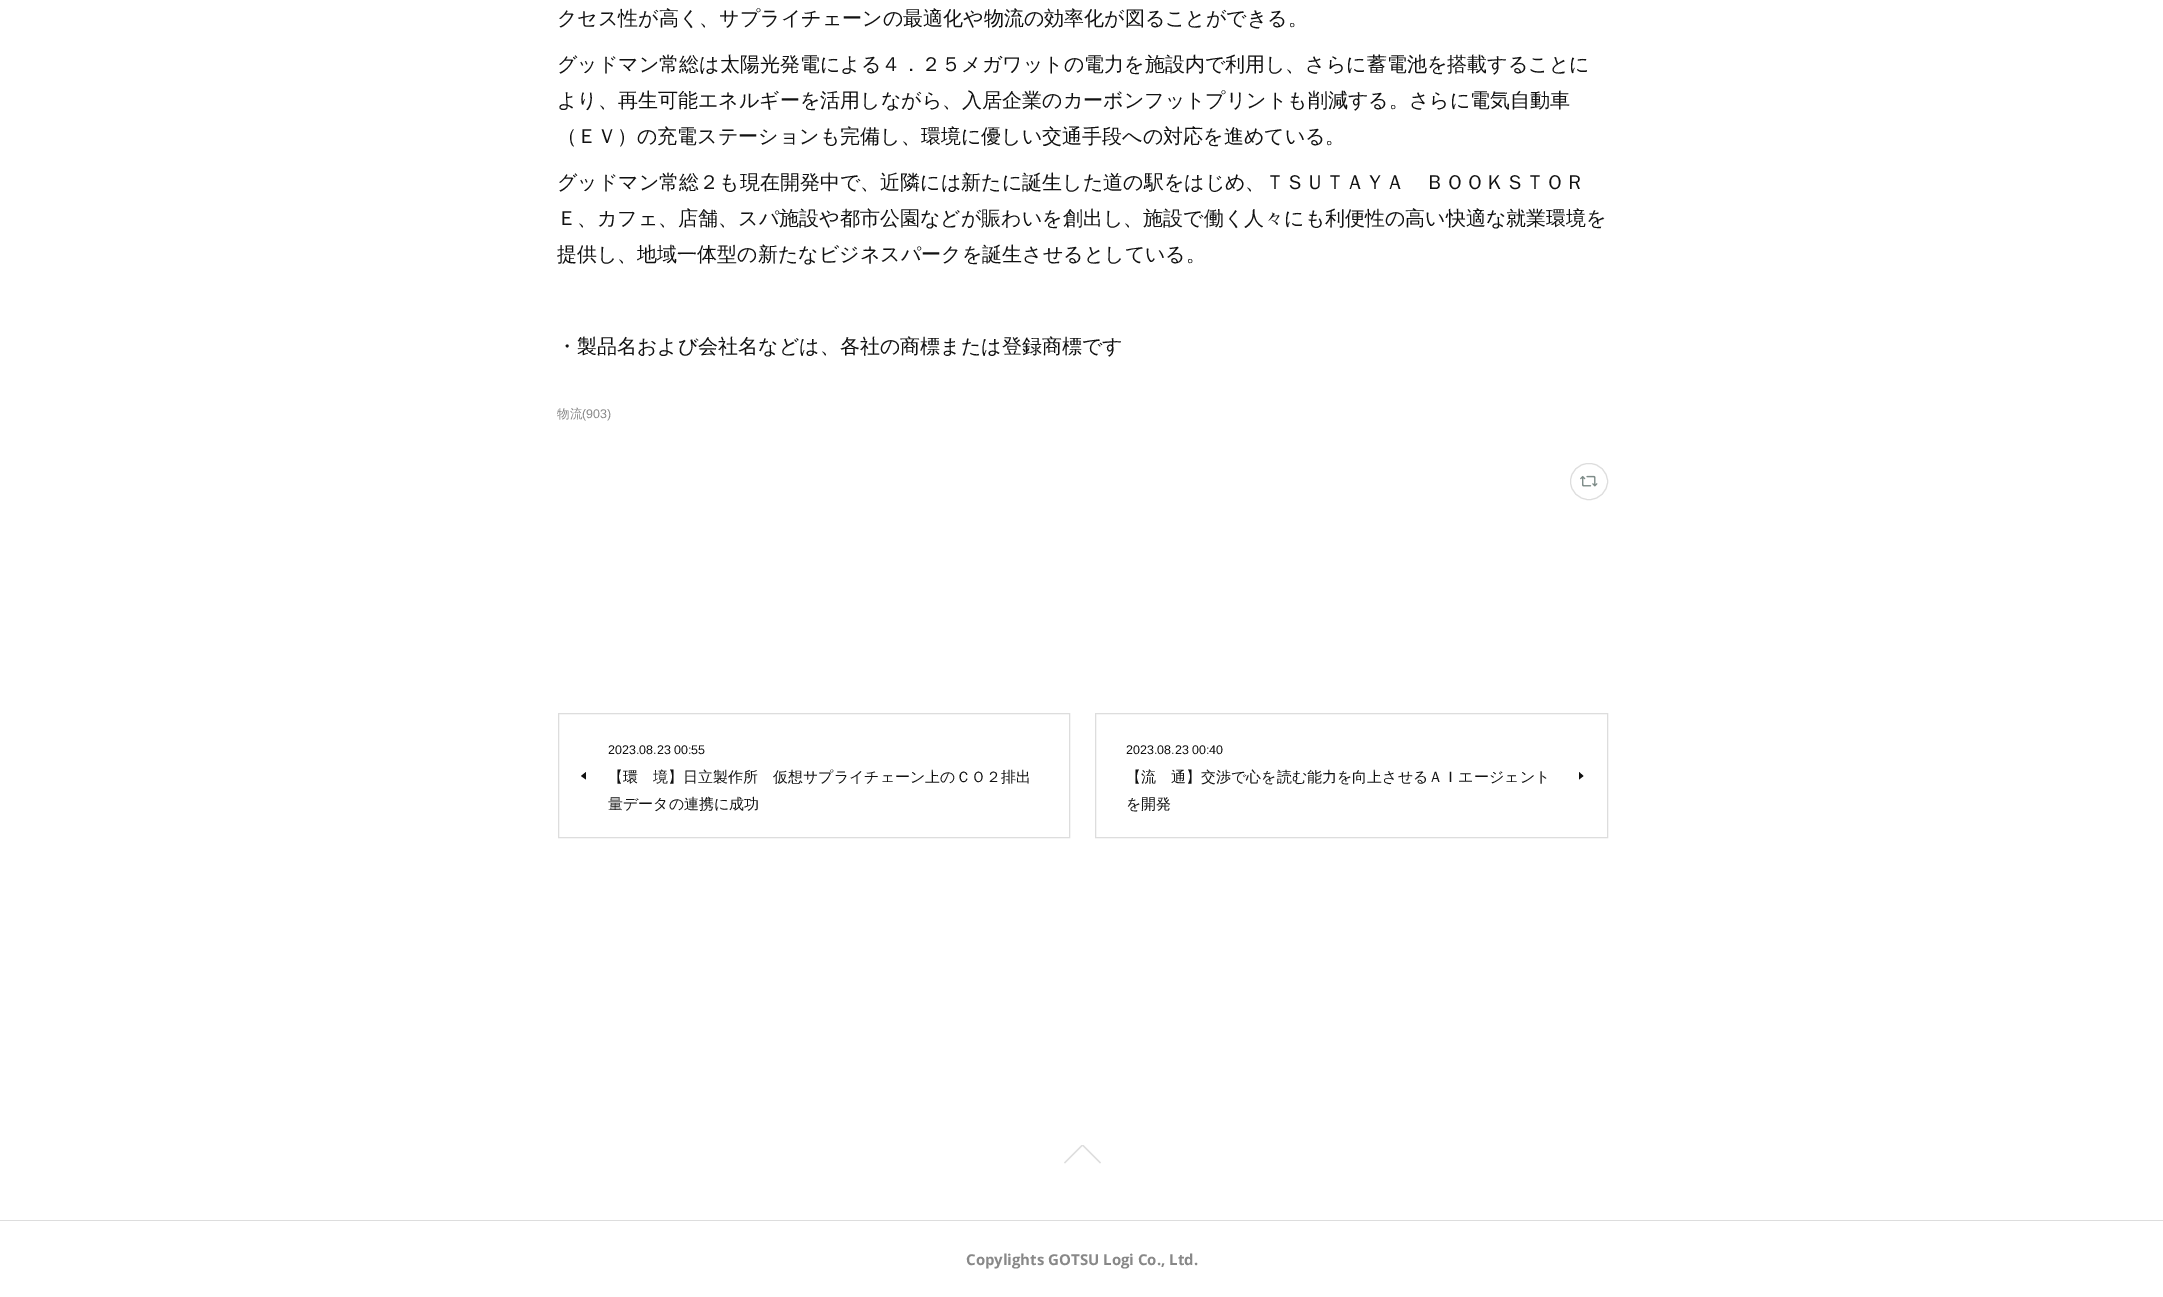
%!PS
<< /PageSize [2163 1297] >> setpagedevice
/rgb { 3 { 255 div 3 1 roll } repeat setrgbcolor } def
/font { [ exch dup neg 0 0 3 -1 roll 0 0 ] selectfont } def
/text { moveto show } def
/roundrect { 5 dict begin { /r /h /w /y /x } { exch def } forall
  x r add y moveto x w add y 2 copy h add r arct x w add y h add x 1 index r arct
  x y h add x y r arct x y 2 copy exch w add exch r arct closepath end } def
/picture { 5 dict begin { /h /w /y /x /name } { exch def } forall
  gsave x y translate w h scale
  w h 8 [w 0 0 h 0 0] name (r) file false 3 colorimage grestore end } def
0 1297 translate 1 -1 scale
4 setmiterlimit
255 255 255 rgb
0 0 2163 1297 rectfill
221 221 221 rgb
1570.5 463.5 37 36 18 roundrect stroke
(img_01.rgb) 1580 475 18 12 picture
558.5 713.5 511 124 rectstroke
17 17 17 rgb
586 779.5 moveto 0 -7.5 rlineto -5 4 rlineto closepath fill
221 221 221 rgb
1095.5 713.5 512 124 rectstroke
17 17 17 rgb
1579 772 moveto 0 7.5 rlineto 4.5 -3.5 rlineto closepath fill
gsave
0 1145 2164 26 rectclip
221 221 221 rgb
1064 1162.5 moveto 18.5 -18.5 rlineto 1 1 rlineto -18.5 18.5 rlineto closepath fill
1081.5 1145 moveto 1 -1 rlineto 18.5 18.5 rlineto -1 1 rlineto closepath fill
grestore
221 221 221 rgb
0 1220 2163 1 rectfill
/WenQuanYiZenHei-Medium 20 font
17 17 17 rgb
(クセス性が高く、サプライチェーンの最適化や物流の効率化が図ることができる。) 557 25 text
(グッドマン常総は太陽光発電による４．２５メガワットの電力を施設内で利用し、さらに蓄電池を搭載することに) 557 71 text
(より、再生可能エネルギーを活用しながら、入居企業のカーボンフットプリントも削減する。さらに電気自動車) 557 107 text
(（ＥＶ）の充電ステーションも完備し、環境に優しい交通手段への対応を進めている。) 557 143 text
(グッドマン常総２も現在開発中で、近隣には新たに誕生した道の駅をはじめ、ＴＳＵＴＡＹＡ　ＢＯＯＫＳＴＯＲ) 557 189 text
(Ｅ、カフェ、店舗、スパ施設や都市公園などが賑わいを創出し、施設で働く人々にも利便性の高い快適な就業環境を) 557 225 text
(提供し、地域一体型の新たなビジネスパークを誕生させるとしている。) 557 261 text
(・製品名および会社名などは、各社の商標または登録商標です) 557 353 text
/WenQuanYiZenHei-Medium 12.5 font
136 136 136 rgb
(物流) 557 418 text
/LiberationSans-Regular 12.5 font
(\(903\)) 582 418 text
17 17 17 rgb
(2023.08.23 00:55) 608 754 text
/WenQuanYiZenHei-Medium 15 font
(【環　境】日立製作所　仮想サプライチェーン上のＣＯ２排出) 608 782 text
(量データの連携に成功) 608 809 text
/LiberationSans-Regular 12.5 font
(2023.08.23 00:40) 1126 754 text
/WenQuanYiZenHei-Medium 15 font
(【流　通】交渉で心を読む能力を向上させるＡＩエージェント) 1126 782 text
(を開発) 1126 809 text
/OpenSans-Bold 15 font
136 136 136 rgb
(Copylights GOTSU Logi Co., Ltd.) 966 1265 text
showpage
